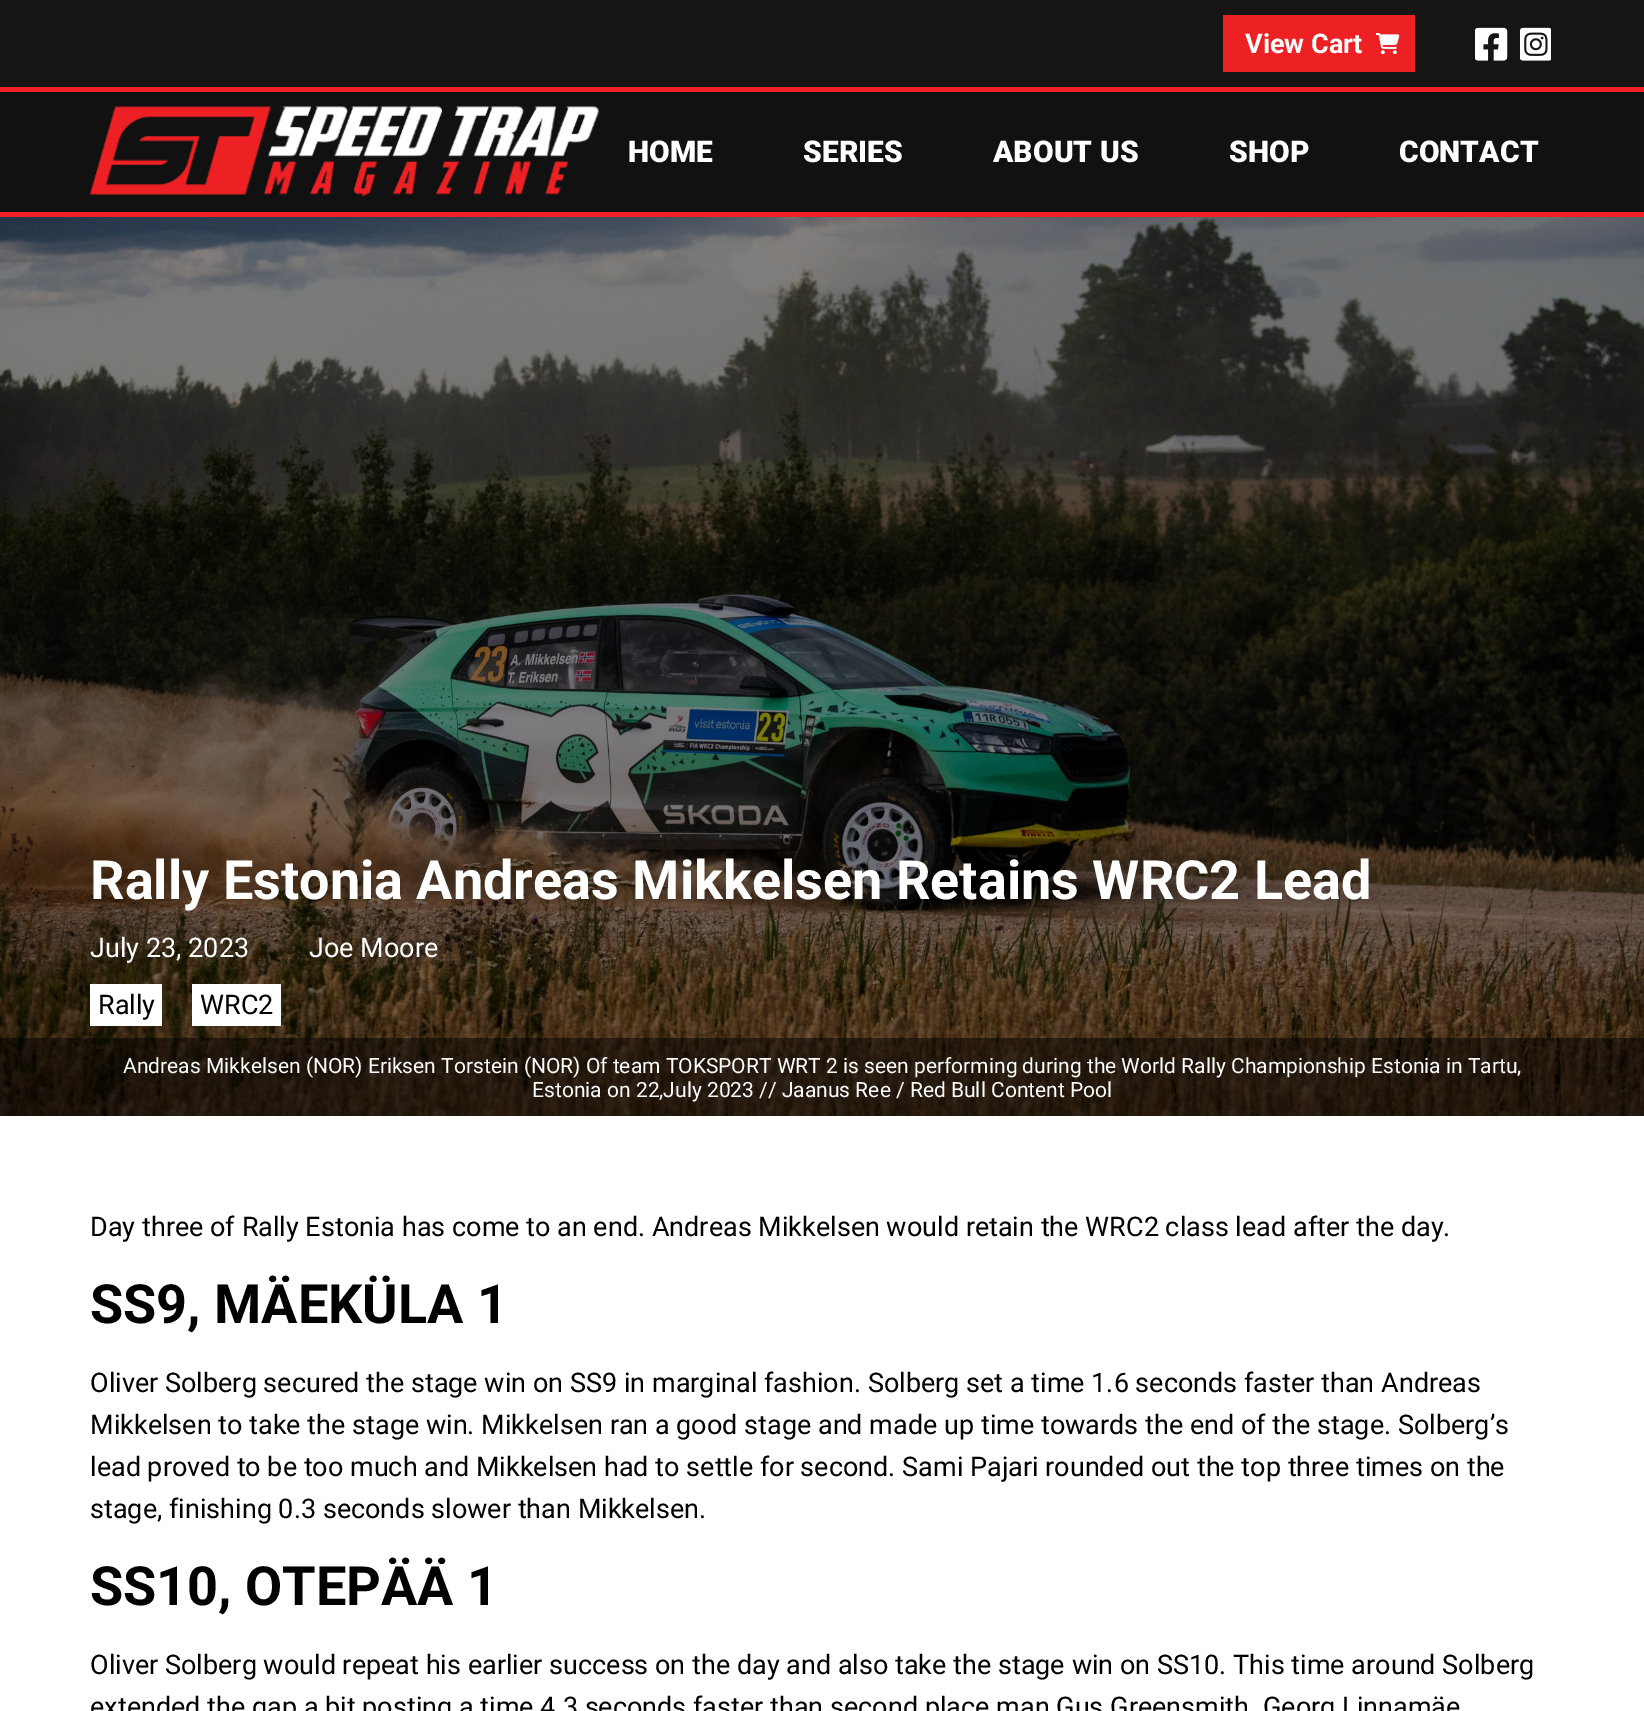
%!PS
<< /PageSize [1644 1711] /PageUsesTransparency true >> setpagedevice
/rgb { 3 { 255 div 3 1 roll } repeat setrgbcolor } def
/font { [ exch dup neg 0 0 3 -1 roll 0 0 ] selectfont } def
/text { moveto show } def
/alpha { dup .setfillconstantalpha .setstrokeconstantalpha } def
/picture { 5 dict begin { /h /w /y /x /name } { exch def } forall
  gsave x y translate w h scale
  w h 8 [w 0 0 h 0 0] name (r) file false 3 colorimage grestore end } def
0 .pushpdf14devicefilter
0 1711 translate 1 -1 scale
4 setmiterlimit
255 255 255 rgb
0 0 1644 1711 rectfill
21 21 21 rgb
0 0 1644 87 rectfill
237 32 36 rgb
1223 15 192 57 rectfill
(img_01.rgb) 1376 33 24 21 picture
(img_02.rgb) 1475 27 33 34 picture
(img_03.rgb) 1520 27 31 34 picture
17 17 17 rgb
0 92 1644 120 rectfill
237 32 36 rgb
0 87 1644 5 rectfill
0 212 1644 5 rectfill
(img_04.rgb) 90 106 509 91 picture
(img_05.rgb) 0 217 1644 899 picture
255 255 255 rgb
90 984 72 42 rectfill
192 984 89 42 rectfill
0.5 alpha
0 0 0 rgb
0 1038 1644 78 rectfill
/Roboto-Bold 27 font
1 alpha
255 255 255 rgb
(View Cart) 1245 53 text
/Roboto-Black 30 font
(HOME) 628 162 text
(SERIES) 803 162 text
(ABOUT US) 993 162 text
(SHOP) 1229 162 text
(CONTACT) 1399 162 text
/Roboto-Bold 54 font
(Rally Estonia Andreas Mikkelsen Retains WRC2 Lead) 90 899 text
/Roboto-Regular 27 font
(July 23, 2023) 90 957 text
(Joe Moore) 309 957 text
0 0 0 rgb
(Rally) 98 1014 text
(WRC2) 200 1014 text
/Roboto-Regular 21 font
255 255 255 rgb
(Andreas Mikkelsen \(NOR\) Eriksen Torstein \(NOR\) Of team TOKSPORT WRT 2 is seen performing during the World Rally Championship Estonia in Tartu,) 123 1073 text
(Estonia on 22,July 2023 // Jaanus Ree / Red Bull Content Pool) 532 1097 text
/Roboto-Regular 27 font
0 0 0 rgb
(Day three of Rally Estonia has come to an end. Andreas Mikkelsen would retain the WRC2 class lead after the day.) 90 1236 text
/Roboto-Bold 54 font
(SS9, MÄEKÜLA 1) 90 1323 text
/Roboto-Regular 27 font
(Oliver Solberg secured the stage win on SS9 in marginal fashion. Solberg set a time 1.6 seconds faster than Andreas) 90 1392 text
(Mikkelsen to take the stage win. Mikkelsen ran a good stage and made up time towards the end of the stage. Solberg’s) 90 1434 text
(lead proved to be too much and Mikkelsen had to settle for second. Sami Pajari rounded out the top three times on the) 90 1476 text
(stage, finishing 0.3 seconds slower than Mikkelsen.) 90 1518 text
/Roboto-Bold 54 font
(SS10, OTEPÄÄ 1) 90 1605 text
/Roboto-Regular 27 font
(Oliver Solberg would repeat his earlier success on the day and also take the stage win on SS10. This time around Solberg) 90 1674 text
(extended the gap a bit posting a time 4.3 seconds faster than second place man Gus Greensmith. Georg Linnamäe) 90 1716 text
.poppdf14devicefilter showpage
